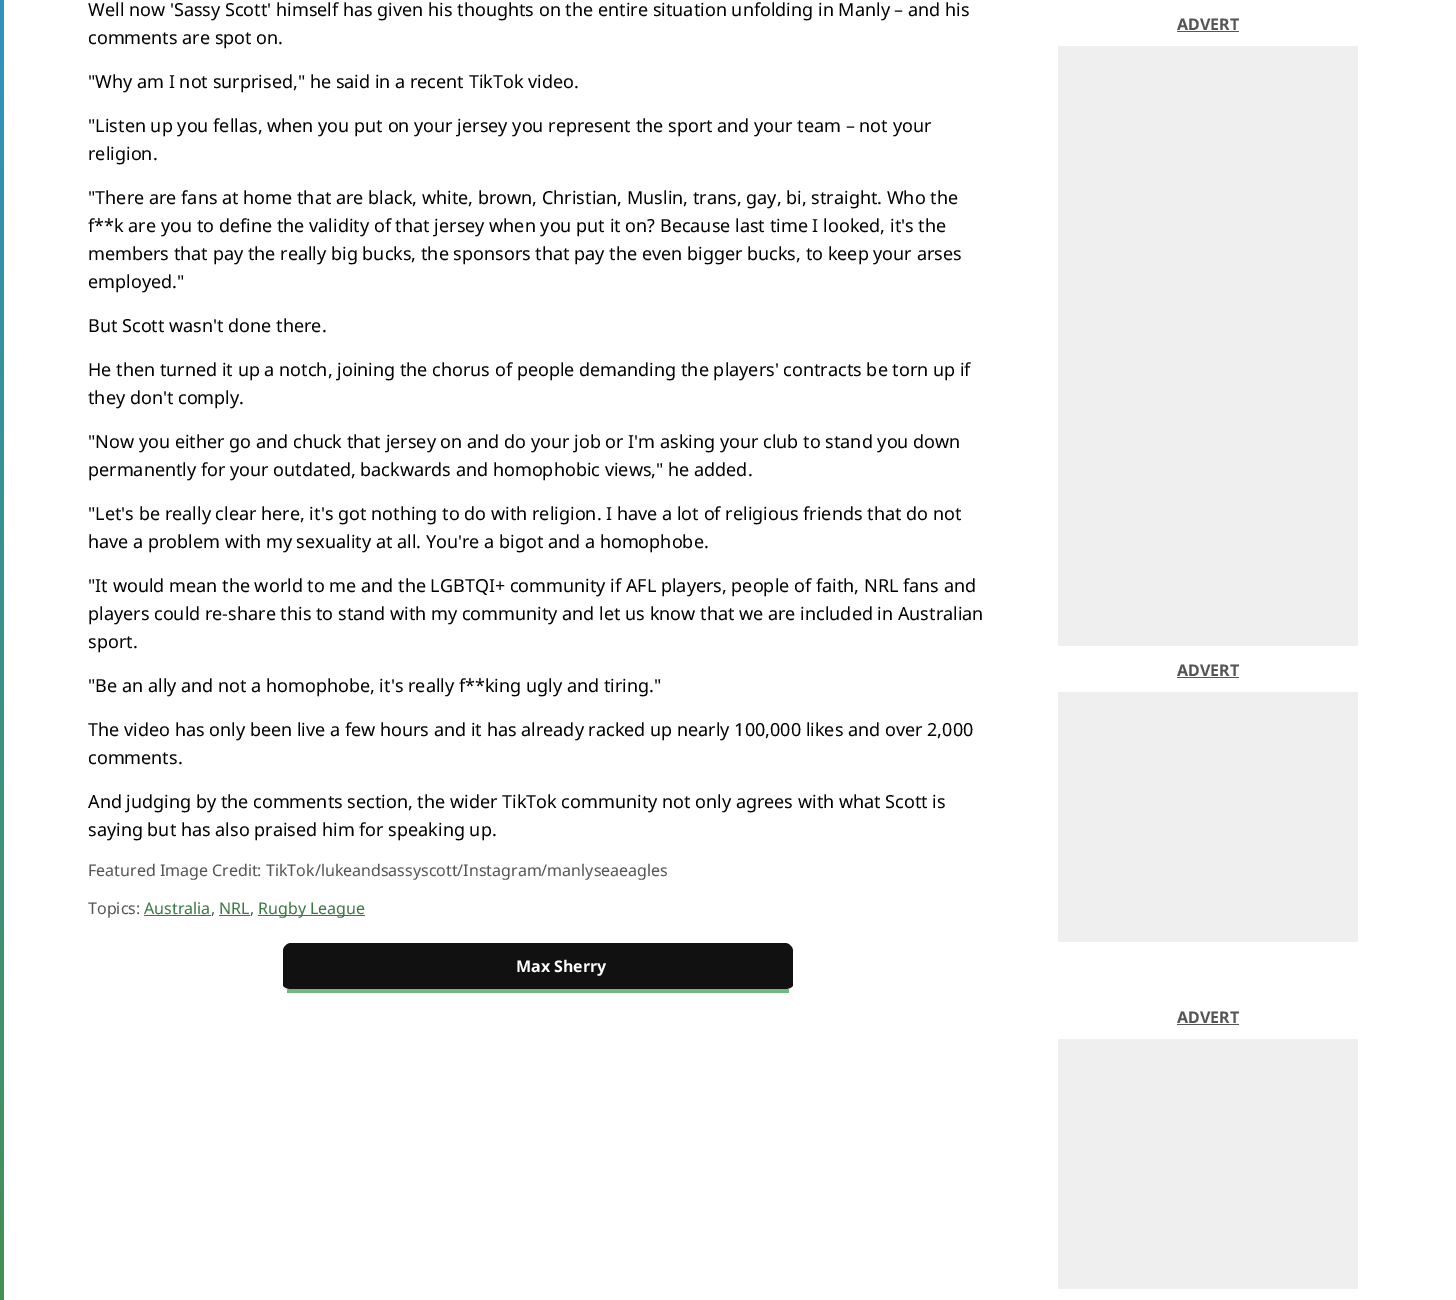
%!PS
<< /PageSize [1456 1300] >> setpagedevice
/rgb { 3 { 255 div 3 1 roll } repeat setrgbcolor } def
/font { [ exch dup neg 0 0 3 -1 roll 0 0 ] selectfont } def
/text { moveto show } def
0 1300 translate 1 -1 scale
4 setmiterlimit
255 255 255 rgb
0 0 1456 1300 rectfill
gsave 0 0 moveto 4 0 rlineto 0 1300 rlineto -4 0 rlineto closepath clip newpath
<< /ShadingType 2 /ColorSpace /DeviceRGB /Coords [2 0 2 1300] /Extend [true true] /Function << /FunctionType 2 /Domain [0 1] /C0 [0.184 0.576 0.749] /C1 [0.267 0.569 0.333] /N 1 >> >> shfill grestore
57 120 67 rgb
144 915 67 1 rectfill
219 915 31 1 rectfill
258 915 107 1 rectfill
114 185 125 rgb
287 989 502 4 rectfill
17 17 17 rgb
291 943 moveto -4 0 -8 4 -8 8 rcurveto 0 34 rlineto 0 2 4 4 8 4 rcurveto 494 0 rlineto 4 0 8 -2 8 -4 rcurveto 0 -34 rlineto 0 -4 -4 -8 -8 -8 rcurveto closepath fill
85 85 85 rgb
1177 31 62 1 rectfill
239 239 239 rgb
1058 46 300 600 rectfill
85 85 85 rgb
1177 677 62 1 rectfill
239 239 239 rgb
1058 692 300 250 rectfill
85 85 85 rgb
1177 1024 62 1 rectfill
239 239 239 rgb
1058 1039 300 250 rectfill
/NotoSans-Regular 18 font
0 0 0 rgb
(Well now 'Sassy Scott' himself has given his thoughts on the entire situation unfolding in Manly – and his) 88 16 text
(comments are spot on.) 88 44 text
("Why am I not surprised," he said in a recent TikTok video.) 88 88 text
("Listen up you fellas, when you put on your jersey you represent the sport and your team – not your) 88 132 text
(religion.) 88 160 text
("There are fans at home that are black, white, brown, Christian, Muslin, trans, gay, bi, straight. Who the) 88 204 text
(f**k are you to define the validity of that jersey when you put it on? Because last time I looked, it's the) 88 232 text
(members that pay the really big bucks, the sponsors that pay the even bigger bucks, to keep your arses) 88 260 text
(employed.") 88 288 text
(But Scott wasn't done there.) 88 332 text
(He then turned it up a notch, joining the chorus of people demanding the players' contracts be torn up if) 88 376 text
(they don't comply.) 88 404 text
("Now you either go and chuck that jersey on and do your job or I'm asking your club to stand you down) 88 448 text
(permanently for your outdated, backwards and homophobic views," he added.) 88 476 text
("Let's be really clear here, it's got nothing to do with religion. I have a lot of religious friends that do not) 88 520 text
(have a problem with my sexuality at all. You're a bigot and a homophobe.) 88 548 text
("It would mean the world to me and the LGBTQI+ community if AFL players, people of faith, NRL fans and) 88 592 text
(players could re-share this to stand with my community and let us know that we are included in Australian) 88 620 text
(sport.) 88 648 text
("Be an ally and not a homophobe, it's really f**king ugly and tiring.") 88 692 text
(The video has only been live a few hours and it has already racked up nearly 100,000 likes and over 2,000) 88 736 text
(comments.) 88 764 text
(And judging by the comments section, the wider TikTok community not only agrees with what Scott is) 88 808 text
(saying but has also praised him for speaking up.) 88 836 text
/NotoSans-Regular 16 font
85 85 85 rgb
(Featured Image Credit: TikTok/lukeandsassyscott/Instagram/manlyseaeagles) 88 876 text
(Topics:) 88 914 text
57 120 67 rgb
(Australia) 144 914 text
(NRL) 219 914 text
(Rugby League) 258 914 text
85 85 85 rgb
(,) 211 914 text
(,) 250 914 text
/NotoSans-Bold 16 font
255 255 255 rgb
(Max Sherry) 516 972 text
85 85 85 rgb
(ADVERT) 1177 30 text
(ADVERT) 1177 676 text
(ADVERT) 1177 1023 text
showpage
